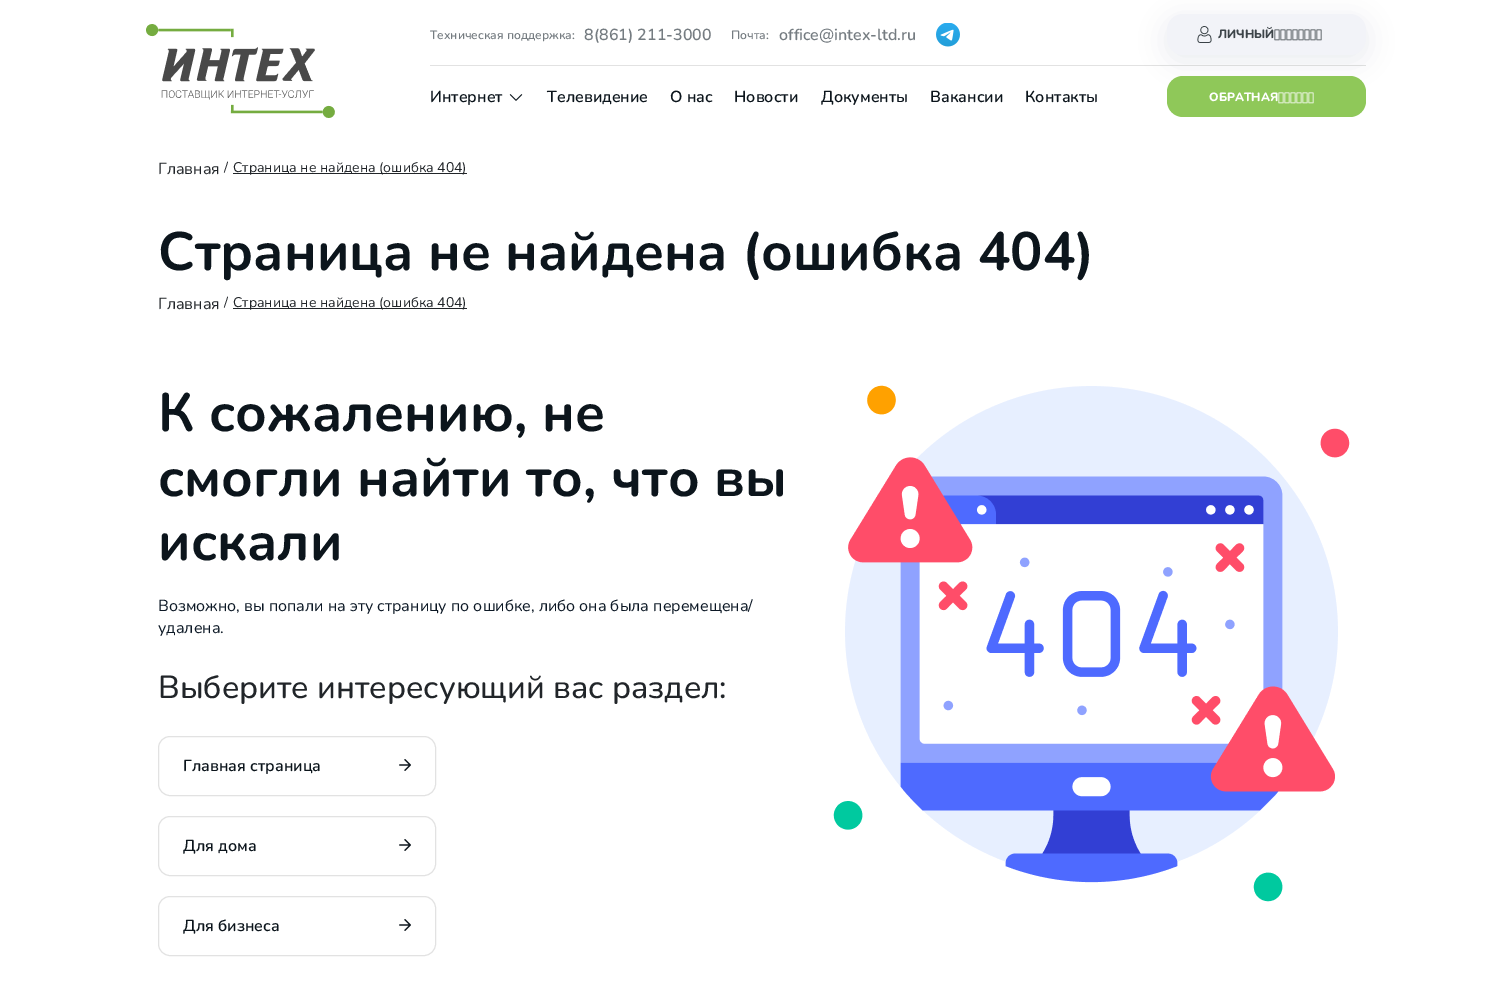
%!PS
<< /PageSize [1511 982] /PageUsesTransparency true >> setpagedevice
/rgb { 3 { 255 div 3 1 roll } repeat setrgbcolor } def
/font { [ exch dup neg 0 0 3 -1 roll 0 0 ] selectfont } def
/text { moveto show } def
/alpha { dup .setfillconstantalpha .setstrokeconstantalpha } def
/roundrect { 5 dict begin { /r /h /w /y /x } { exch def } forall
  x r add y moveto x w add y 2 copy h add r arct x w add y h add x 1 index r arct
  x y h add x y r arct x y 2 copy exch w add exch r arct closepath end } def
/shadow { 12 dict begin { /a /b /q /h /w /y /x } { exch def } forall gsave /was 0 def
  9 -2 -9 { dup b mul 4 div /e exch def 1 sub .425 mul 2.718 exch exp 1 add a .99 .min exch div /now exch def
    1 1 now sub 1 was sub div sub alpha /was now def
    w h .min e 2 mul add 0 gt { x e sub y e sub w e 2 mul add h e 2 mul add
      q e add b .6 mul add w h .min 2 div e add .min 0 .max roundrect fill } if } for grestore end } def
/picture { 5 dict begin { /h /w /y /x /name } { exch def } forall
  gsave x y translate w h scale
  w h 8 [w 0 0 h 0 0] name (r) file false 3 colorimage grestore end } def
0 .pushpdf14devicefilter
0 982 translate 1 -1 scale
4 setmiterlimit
255 255 255 rgb
0 0 1511 982 rectfill
(img_01.rgb) 146 24 189 94 picture
226 226 226 rgb
430 65 936 1 rectfill
(img_02.rgb) 936 23 24 24 picture
15 34 79 rgb
1167 20 199 41 16 13 0.08 shadow
242 243 248 rgb
1167 14 199 41 16 roundrect fill
(img_03.rgb) 1197 26 15 17 picture
(img_04.rgb) 509 94 14 7 picture
143 200 89 rgb
1167 76 199 41 16 roundrect fill
33 37 41 rgb
233 173 234 1 rectfill
233 308 234 1 rectfill
226 226 226 rgb
158.5 736.5 277 59 11.5 roundrect stroke
(img_05.rgb) 399 759 12 12 picture
158.5 816.5 277 59 11.5 roundrect stroke
(img_05.rgb) 399 839 12 12 picture
158.5 896.5 277 59 11.5 roundrect stroke
(img_05.rgb) 399 919 12 12 picture
(img_06.rgb) 833 385 517 517 picture
/Nunito-ExtraLight 12 font
117 124 129 rgb
(Техническая поддержка:) 430 39 text
/Nunito-ExtraLight 16 font
(8\(861\) 211-3000) 584 40 text
/Nunito-ExtraLight 12 font
(Почта:) 731 39 text
/Nunito-ExtraLight 16 font
(office@intex-ltd.ru) 779 40 text
/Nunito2-ExtraLight 12 font
61 68 73 rgb
(ЛИЧНЫЙ КАБИНЕТ) 1218 38 text
/Nunito-ExtraLight 16 font
12 21 28 rgb
(Интернет) 430 102 text
(Телевидение) 547 102 text
(О нас) 670 102 text
(Новости) 734 102 text
(Документы) 821 102 text
(Вакансии) 930 102 text
(Контакты) 1025 102 text
/Nunito2-ExtraLight 12 font
255 255 255 rgb
(ОБРАТНАЯ СВЯЗЬ) 1209 101 text
/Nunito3-ExtraLight 16 font
33 37 41 rgb
(Главная) 158 174 text
/Nunito3-ExtraLight 14 font
(/) 224 172 text
(Страница не найдена \(ошибка 404\)) 233 172 text
/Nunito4-ExtraLight 54 font
12 21 28 rgb
(Страница не найдена \(ошибка 404\)) 158 270 text
/Nunito3-ExtraLight 16 font
33 37 41 rgb
(Главная) 158 309 text
/Nunito3-ExtraLight 14 font
(/) 224 307 text
(Страница не найдена \(ошибка 404\)) 233 307 text
/Nunito4-ExtraLight 54 font
12 21 28 rgb
(К сожалению, не) 158 431 text
(смогли найти то, что вы) 158 496 text
(искали) 158 560 text
/Nunito3-ExtraLight 16 font
12 24 37 rgb
(Возможно, вы попали на эту страницу по ошибке, либо она была перемещена/) 158 611 text
(удалена.) 158 633 text
/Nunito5-ExtraLight 32 font
33 37 41 rgb
(Выберите интересующий вас раздел:) 158 698 text
/Nunito-ExtraLight 16 font
12 21 28 rgb
(Главная страница) 183 771 text
(Для дома) 183 851 text
(Для бизнеса) 183 931 text
.poppdf14devicefilter showpage
